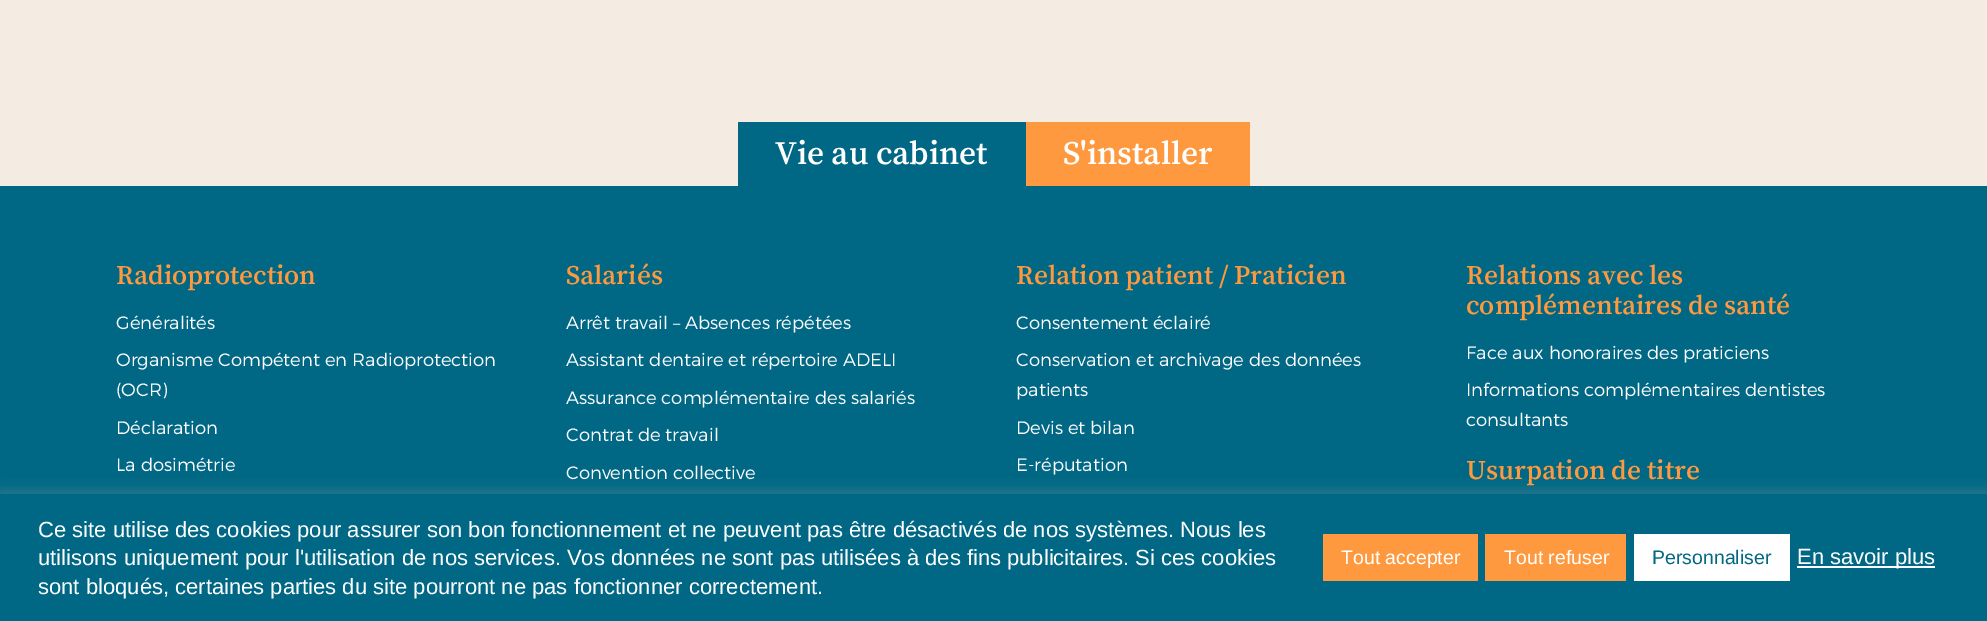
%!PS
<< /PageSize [1987 621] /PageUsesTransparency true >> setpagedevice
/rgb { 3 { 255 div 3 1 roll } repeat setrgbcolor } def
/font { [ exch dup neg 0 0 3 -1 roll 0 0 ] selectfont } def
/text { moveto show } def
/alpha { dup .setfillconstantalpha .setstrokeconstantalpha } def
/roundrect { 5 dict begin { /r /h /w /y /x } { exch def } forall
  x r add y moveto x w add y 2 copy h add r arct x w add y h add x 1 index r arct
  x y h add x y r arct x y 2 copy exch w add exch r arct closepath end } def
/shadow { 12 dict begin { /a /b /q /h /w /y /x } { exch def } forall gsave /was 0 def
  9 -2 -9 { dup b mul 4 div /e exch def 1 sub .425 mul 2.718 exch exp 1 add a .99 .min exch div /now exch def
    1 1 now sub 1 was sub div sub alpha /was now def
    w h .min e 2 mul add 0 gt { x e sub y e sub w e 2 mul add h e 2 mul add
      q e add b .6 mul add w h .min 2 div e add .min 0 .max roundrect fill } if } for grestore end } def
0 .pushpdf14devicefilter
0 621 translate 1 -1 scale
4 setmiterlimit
244 236 227 rgb
0 0 1987 621 rectfill
0 103 132 rgb
738 122 288 64 rectfill
255 153 63 rgb
1026 122 224 64 rectfill
0 103 132 rgb
0 186 1987 308 rectfill
172 171 171 rgb
0 492 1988 128 0 7.5 0.3 shadow
0 103 132 rgb
0 494 1987 127 rectfill
255 153 63 rgb
1323 534 155 47 rectfill
1485 534 141 47 rectfill
255 255 255 rgb
1634 534 156 47 rectfill
1797 566 138 2 rectfill
/SourceSerifPro-SemiBold 33 font
(Vie au cabinet) 775 164 text
(S'installer) 1063 164 text
/SourceSerifPro-SemiBold 27 font
255 153 63 rgb
(Radioprotection) 116 284 text
/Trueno-Light 18 font
255 255 255 rgb
(Généralités) 116 329 text
(Organisme Compétent en Radioprotection) 116 366 text
(\(OCR\)) 116 396 text
(Déclaration) 116 434 text
(La dosimétrie) 116 471 text
/SourceSerifPro-SemiBold 27 font
255 153 63 rgb
(Salariés) 566 284 text
/Trueno-Light 18 font
255 255 255 rgb
(Arrêt travail – Absences répétées) 566 329 text
(Assistant dentaire et répertoire ADELI) 566 366 text
(Assurance complémentaire des salariés) 566 404 text
(Contrat de travail) 566 441 text
(Convention collective) 566 479 text
/SourceSerifPro-SemiBold 27 font
255 153 63 rgb
(Relation patient / Praticien) 1016 284 text
/Trueno-Light 18 font
255 255 255 rgb
(Consentement éclairé) 1016 329 text
(Conservation et archivage des données) 1016 366 text
(patients) 1016 396 text
(Devis et bilan) 1016 434 text
(E-réputation) 1016 471 text
/SourceSerifPro-SemiBold 27 font
255 153 63 rgb
(Relations avec les) 1466 284 text
(complémentaires de santé) 1466 314 text
/Trueno-Light 18 font
255 255 255 rgb
(Face aux honoraires des praticiens) 1466 359 text
(Informations complémentaires dentistes) 1466 396 text
(consultants) 1466 426 text
/SourceSerifPro-SemiBold 27 font
255 153 63 rgb
(Usurpation de titre) 1466 479 text
/LiberationSans-Regular 22 font
255 255 255 rgb
(Ce site utilise des cookies pour assurer son bon fonctionnement et ne peuvent pas être désactivés de nos systèmes. Nous les) 38 537 text
(utilisons uniquement pour l'utilisation de nos services. Vos données ne sont pas utilisées à des fins publicitaires. Si ces cookies) 38 565 text
(sont bloqués, certaines parties du site pourront ne pas fonctionner correctement.) 38 594 text
/LiberationSans-Regular 19.5 font
(Tout accepter) 1341 564 text
(Tout refuser) 1504 564 text
0 103 132 rgb
(Personnaliser) 1652 564 text
/LiberationSans-Regular 22 font
255 255 255 rgb
(En savoir plus) 1797 564 text
.poppdf14devicefilter showpage
